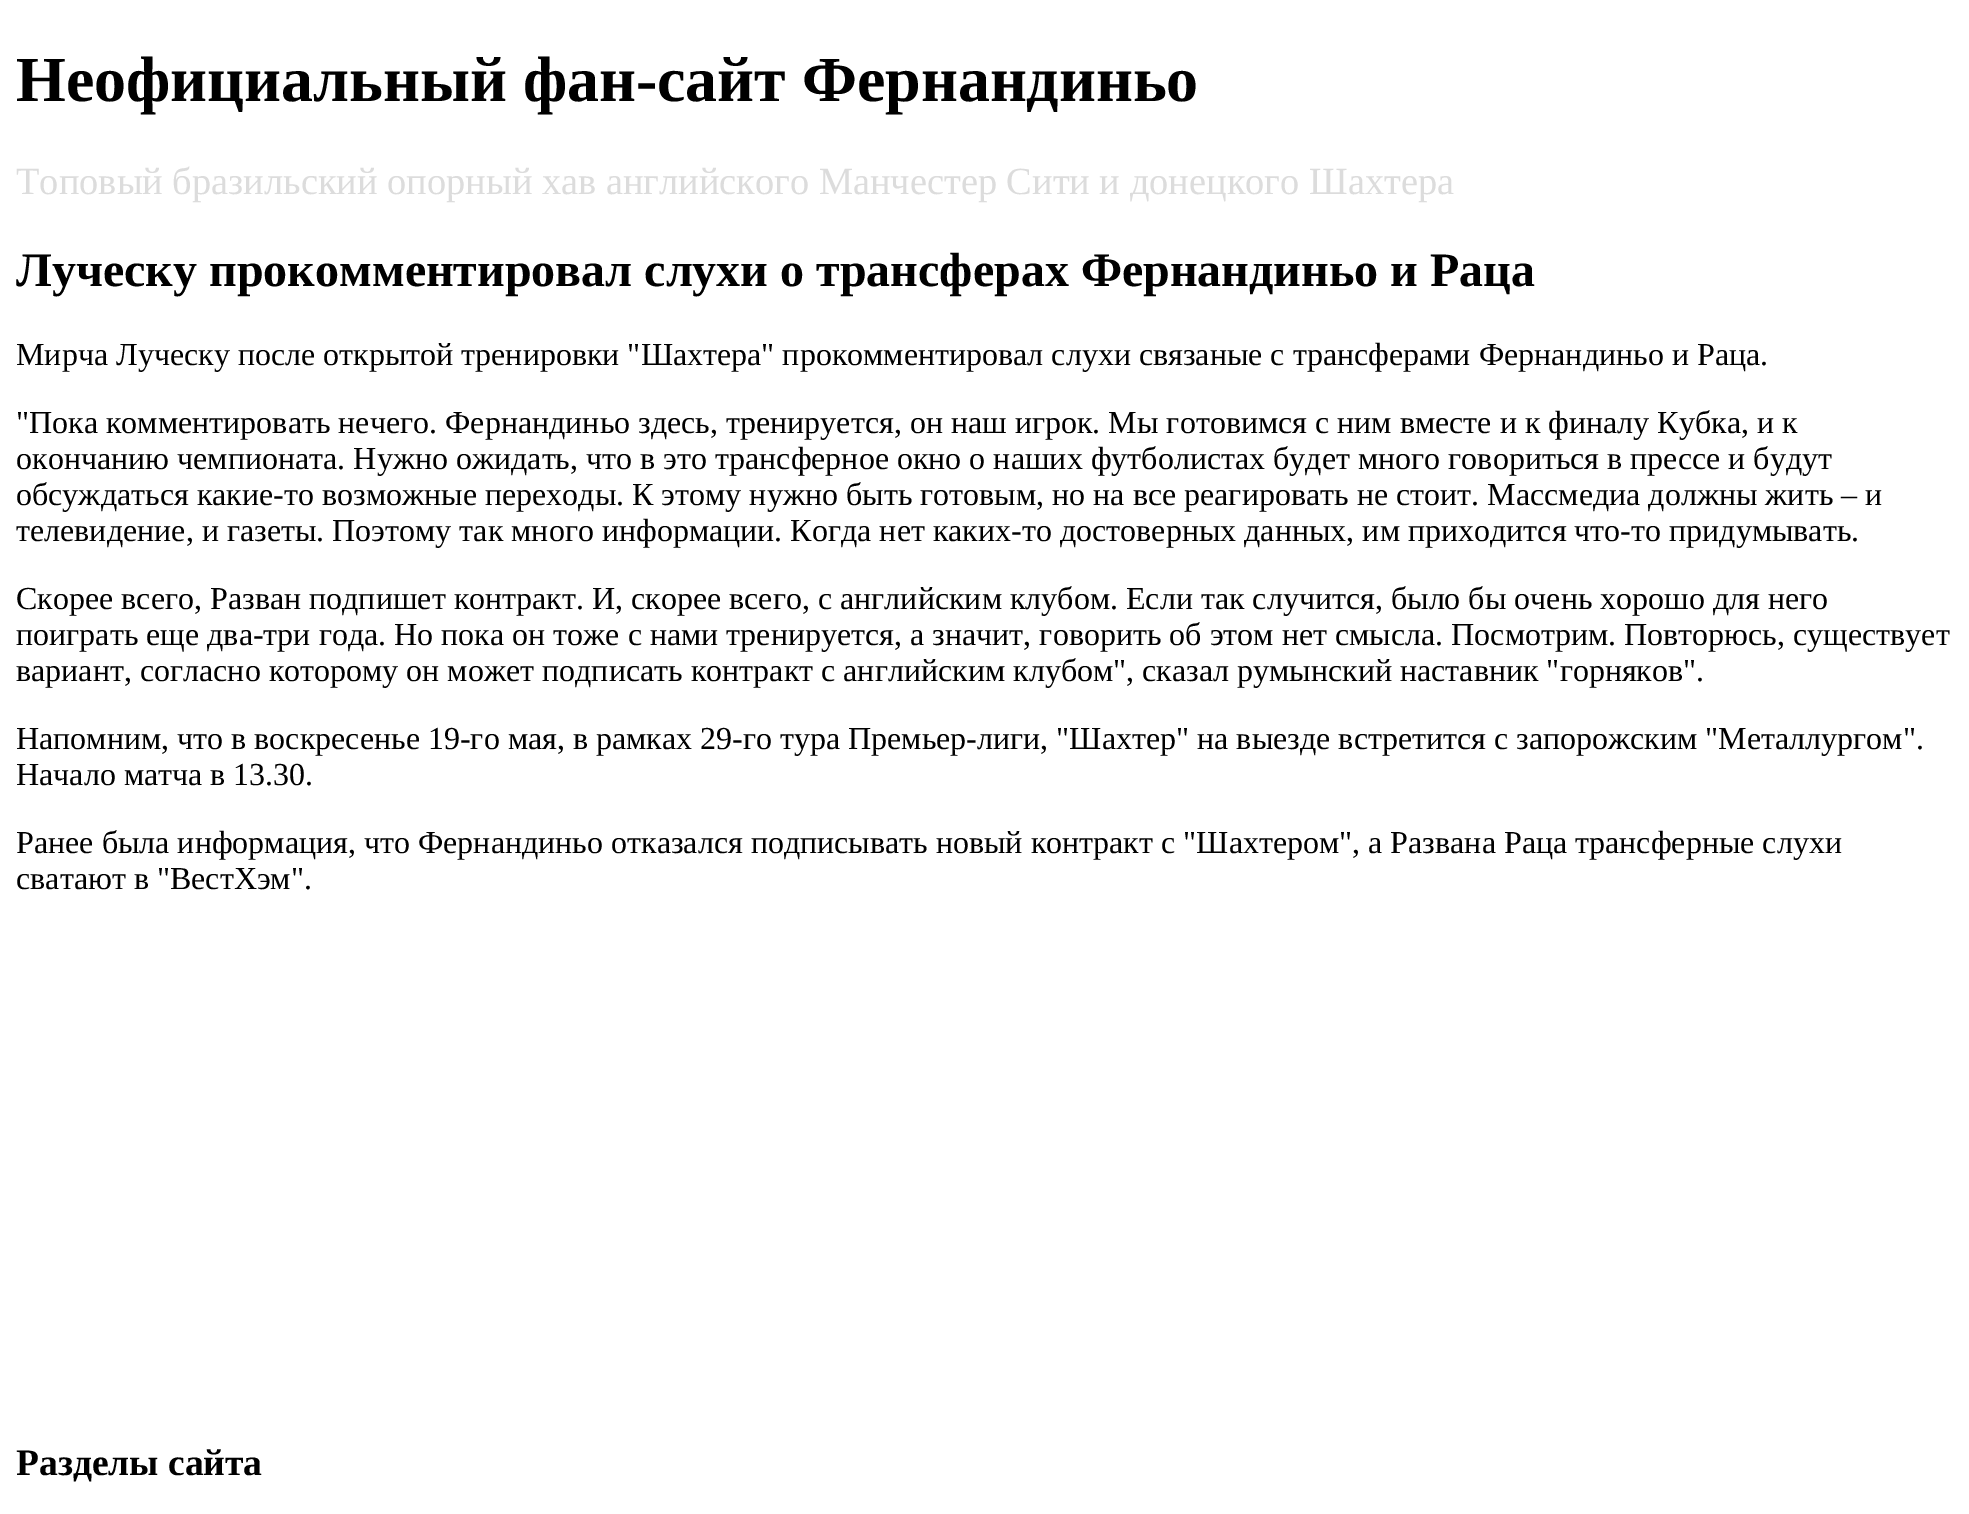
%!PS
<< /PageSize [1969 1514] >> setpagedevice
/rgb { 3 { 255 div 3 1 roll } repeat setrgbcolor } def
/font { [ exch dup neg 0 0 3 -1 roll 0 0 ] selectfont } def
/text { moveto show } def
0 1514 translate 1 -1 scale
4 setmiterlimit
255 255 255 rgb
0 0 1969 1514 rectfill
/LiberationSerif-Bold 64 font
0 0 0 rgb
(Неофициальный фан-сайт Фернандиньо) 16 101 text
/LiberationSerif-Regular 38.4 font
220 220 220 rgb
(Топовый бразильский опорный хав английского Манчестер Сити и донецкого Шахтера) 16 194 text
/LiberationSerif-Bold 48 font
0 0 0 rgb
(Луческу прокомментировал слухи о трансферах Фернандиньо и Раца) 16 286 text
/LiberationSerif-Regular 32 font
(Мирча Луческу после открытой тренировки "Шахтера" прокомментировал слухи связаные с трансферами Фернандиньо и Раца.) 16 365 text
("Пока комментировать нечего. Фернандиньо здесь, тренируется, он наш игрок. Мы готовимся с ним вместе и к финалу Кубка, и к) 16 433 text
(окончанию чемпионата. Нужно ожидать, что в это трансферное окно о наших футболистах будет много говориться в прессе и будут) 16 469 text
(обсуждаться какие-то возможные переходы. К этому нужно быть готовым, но на все реагировать не стоит. Массмедиа должны жить – и) 16 505 text
(телевидение, и газеты. Поэтому так много информации. Когда нет каких-то достоверных данных, им приходится что-то придумывать.) 16 541 text
(Скорее всего, Разван подпишет контракт. И, скорее всего, с английским клубом. Если так случится, было бы очень хорошо для него) 16 609 text
(поиграть еще два-три года. Но пока он тоже с нами тренируется, а значит, говорить об этом нет смысла. Посмотрим. Повторюсь, существует) 16 645 text
(вариант, согласно которому он может подписать контракт с английским клубом", сказал румынский наставник "горняков".) 16 681 text
(Напомним, что в воскресенье 19-го мая, в рамках 29-го тура Премьер-лиги, "Шахтер" на выезде встретится с запорожским "Металлургом".) 16 749 text
(Начало матча в 13.30.) 16 785 text
(Ранее была информация, что Фернандиньо отказался подписывать новый контракт с "Шахтером", а Развана Раца трансферные слухи) 16 853 text
(сватают в "ВестХэм".) 16 889 text
/LiberationSerif-Bold 37.5 font
(Разделы сайта) 16 1475 text
showpage
